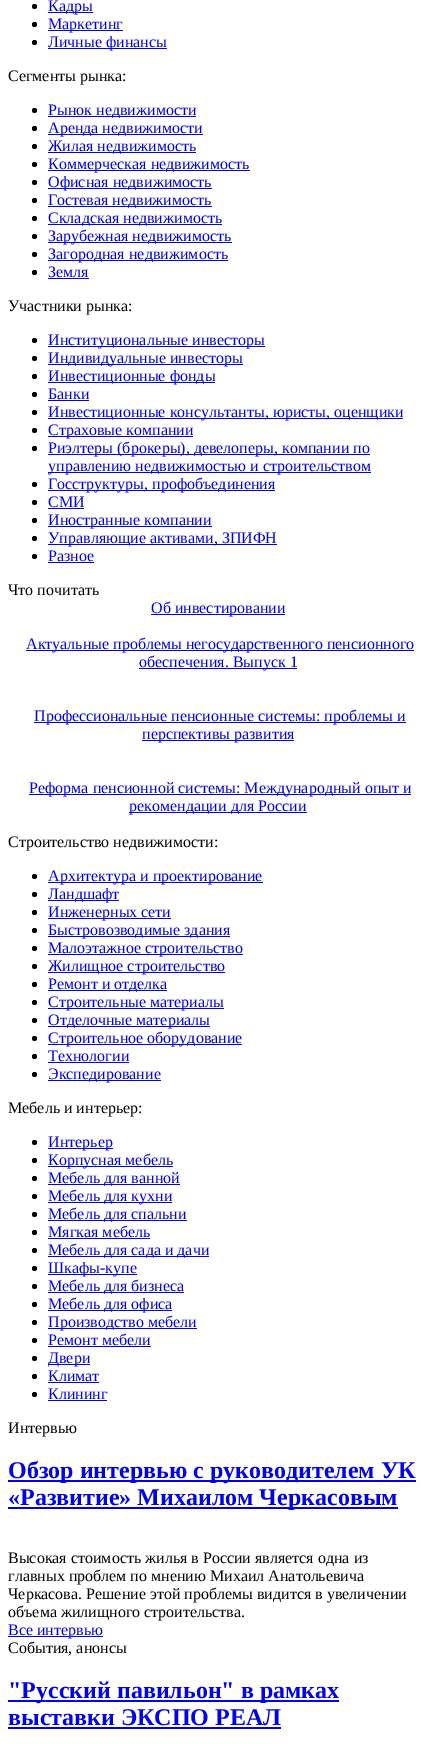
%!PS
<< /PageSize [436 1744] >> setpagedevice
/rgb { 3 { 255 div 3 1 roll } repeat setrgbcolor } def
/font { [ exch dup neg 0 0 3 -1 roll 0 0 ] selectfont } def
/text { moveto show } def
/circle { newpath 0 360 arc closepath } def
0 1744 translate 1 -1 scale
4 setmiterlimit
255 255 255 rgb
0 0 436 1744 rectfill
0 0 0 rgb
34.5 6.5 2.5 circle fill
0 0 238 rgb
48 12 45 1 rectfill
0 0 0 rgb
34.5 24.5 2.5 circle fill
0 0 238 rgb
48 30 75 1 rectfill
0 0 0 rgb
34.5 42.5 2.5 circle fill
0 0 238 rgb
48 48 119 1 rectfill
0 0 0 rgb
34.5 110.5 2.5 circle fill
0 0 238 rgb
48 116 148 1 rectfill
0 0 0 rgb
34.5 128.5 2.5 circle fill
0 0 238 rgb
48 134 155 1 rectfill
0 0 0 rgb
34.5 146.5 2.5 circle fill
0 0 238 rgb
48 152 148 1 rectfill
0 0 0 rgb
34.5 164.5 2.5 circle fill
0 0 238 rgb
48 170 202 1 rectfill
0 0 0 rgb
34.5 182.5 2.5 circle fill
0 0 238 rgb
48 188 164 1 rectfill
0 0 0 rgb
34.5 200.5 2.5 circle fill
0 0 238 rgb
48 206 164 1 rectfill
0 0 0 rgb
34.5 218.5 2.5 circle fill
0 0 238 rgb
48 224 174 1 rectfill
0 0 0 rgb
34.5 236.5 2.5 circle fill
0 0 238 rgb
48 242 184 1 rectfill
0 0 0 rgb
34.5 254.5 2.5 circle fill
0 0 238 rgb
48 260 180 1 rectfill
0 0 0 rgb
34.5 272.5 2.5 circle fill
0 0 238 rgb
48 278 41 1 rectfill
0 0 0 rgb
34.5 340.5 2.5 circle fill
0 0 238 rgb
48 346 217 1 rectfill
0 0 0 rgb
34.5 358.5 2.5 circle fill
0 0 238 rgb
48 364 195 1 rectfill
0 0 0 rgb
34.5 376.5 2.5 circle fill
0 0 238 rgb
48 382 167 1 rectfill
0 0 0 rgb
34.5 394.5 2.5 circle fill
0 0 238 rgb
48 400 41 1 rectfill
0 0 0 rgb
34.5 412.5 2.5 circle fill
0 0 238 rgb
48 418 355 1 rectfill
0 0 0 rgb
34.5 430.5 2.5 circle fill
0 0 238 rgb
48 436 145 1 rectfill
0 0 0 rgb
34.5 448.5 2.5 circle fill
0 0 238 rgb
48 454 322 1 rectfill
48 472 323 1 rectfill
0 0 0 rgb
34.5 484.5 2.5 circle fill
0 0 238 rgb
48 490 227 1 rectfill
0 0 0 rgb
34.5 502.5 2.5 circle fill
0 0 238 rgb
48 508 36 1 rectfill
0 0 0 rgb
34.5 520.5 2.5 circle fill
0 0 238 rgb
48 526 164 1 rectfill
0 0 0 rgb
34.5 538.5 2.5 circle fill
0 0 238 rgb
48 544 229 1 rectfill
0 0 0 rgb
34.5 556.5 2.5 circle fill
0 0 238 rgb
48 562 46 1 rectfill
151 614 134 1 rectfill
26 650 388 1 rectfill
139 668 158 1 rectfill
34 722 372 1 rectfill
142 740 152 1 rectfill
29 794 382 1 rectfill
129 812 178 1 rectfill
0 0 0 rgb
34.5 876.5 2.5 circle fill
0 0 238 rgb
48 882 215 1 rectfill
0 0 0 rgb
34.5 894.5 2.5 circle fill
0 0 238 rgb
48 900 71 1 rectfill
0 0 0 rgb
34.5 912.5 2.5 circle fill
0 0 238 rgb
48 918 123 1 rectfill
0 0 0 rgb
34.5 930.5 2.5 circle fill
0 0 238 rgb
48 936 182 1 rectfill
0 0 0 rgb
34.5 948.5 2.5 circle fill
0 0 238 rgb
48 954 195 1 rectfill
0 0 0 rgb
34.5 966.5 2.5 circle fill
0 0 238 rgb
48 972 177 1 rectfill
0 0 0 rgb
34.5 984.5 2.5 circle fill
0 0 238 rgb
48 990 119 1 rectfill
0 0 0 rgb
34.5 1002.5 2.5 circle fill
0 0 238 rgb
48 1008 176 1 rectfill
0 0 0 rgb
34.5 1020.5 2.5 circle fill
0 0 238 rgb
48 1026 162 1 rectfill
0 0 0 rgb
34.5 1038.5 2.5 circle fill
0 0 238 rgb
48 1044 194 1 rectfill
0 0 0 rgb
34.5 1056.5 2.5 circle fill
0 0 238 rgb
48 1062 81 1 rectfill
0 0 0 rgb
34.5 1074.5 2.5 circle fill
0 0 238 rgb
48 1080 113 1 rectfill
0 0 0 rgb
34.5 1142.5 2.5 circle fill
0 0 238 rgb
48 1148 65 1 rectfill
0 0 0 rgb
34.5 1160.5 2.5 circle fill
0 0 238 rgb
48 1166 125 1 rectfill
0 0 0 rgb
34.5 1178.5 2.5 circle fill
0 0 238 rgb
48 1184 132 1 rectfill
0 0 0 rgb
34.5 1196.5 2.5 circle fill
0 0 238 rgb
48 1202 124 1 rectfill
0 0 0 rgb
34.5 1214.5 2.5 circle fill
0 0 238 rgb
48 1220 139 1 rectfill
0 0 0 rgb
34.5 1232.5 2.5 circle fill
0 0 238 rgb
48 1238 102 1 rectfill
0 0 0 rgb
34.5 1250.5 2.5 circle fill
0 0 238 rgb
48 1256 161 1 rectfill
0 0 0 rgb
34.5 1268.5 2.5 circle fill
0 0 238 rgb
48 1274 89 1 rectfill
0 0 0 rgb
34.5 1286.5 2.5 circle fill
0 0 238 rgb
48 1292 136 1 rectfill
0 0 0 rgb
34.5 1304.5 2.5 circle fill
0 0 238 rgb
48 1310 124 1 rectfill
0 0 0 rgb
34.5 1322.5 2.5 circle fill
0 0 238 rgb
48 1328 149 1 rectfill
0 0 0 rgb
34.5 1340.5 2.5 circle fill
0 0 238 rgb
48 1346 103 1 rectfill
0 0 0 rgb
34.5 1358.5 2.5 circle fill
0 0 238 rgb
48 1364 42 1 rectfill
0 0 0 rgb
34.5 1376.5 2.5 circle fill
0 0 238 rgb
48 1382 51 1 rectfill
0 0 0 rgb
34.5 1394.5 2.5 circle fill
0 0 238 rgb
48 1400 59 1 rectfill
8 1480 408 2 rectfill
8 1507 390 2 rectfill
8 1636 95 1 rectfill
8 1700 331 2 rectfill
8 1727 273 2 rectfill
/LiberationSerif-Regular 16 font
(Кадры) 48 11 text
(Маркетинг) 48 29 text
(Личные финансы) 48 47 text
0 0 0 rgb
(Сегменты рынка:) 8 81 text
0 0 238 rgb
(Рынок недвижимости) 48 115 text
(Аренда недвижимости) 48 133 text
(Жилая недвижимость) 48 151 text
(Коммерческая недвижимость) 48 169 text
(Офисная недвижимость) 48 187 text
(Гостевая недвижимость) 48 205 text
(Складская недвижимость) 48 223 text
(Зарубежная недвижимость) 48 241 text
(Загородная недвижимость) 48 259 text
(Земля) 48 277 text
0 0 0 rgb
(Участники рынка:) 8 311 text
0 0 238 rgb
(Институциональные инвесторы) 48 345 text
(Индивидуальные инвесторы) 48 363 text
(Инвестиционные фонды) 48 381 text
(Банки) 48 399 text
(Инвестиционные консультанты, юристы, оценщики) 48 417 text
(Страховые компании) 48 435 text
(Риэлтеры \(брокеры\), девелоперы, компании по) 48 453 text
(управлению недвижимостью и строительством) 48 471 text
(Госструктуры, профобъединения) 48 489 text
(СМИ) 48 507 text
(Иностранные компании) 48 525 text
(Управляющие активами, ЗПИФН) 48 543 text
(Разное) 48 561 text
0 0 0 rgb
(Что почитать) 8 595 text
0 0 238 rgb
(Об инвестировании) 151 613 text
(Актуальные проблемы негосударственного пенсионного) 26 649 text
(обеспечения. Выпуск 1) 139 667 text
(Профессиональные пенсионные системы: проблемы и) 34 721 text
(перспективы развития) 142 739 text
(Реформа пенсионной системы: Международный опыт и) 29 793 text
(рекомендации для России) 129 811 text
0 0 0 rgb
(Строительство недвижимости:) 8 847 text
0 0 238 rgb
(Архитектура и проектирование) 48 881 text
(Ландшафт) 48 899 text
(Инженерных сети) 48 917 text
(Быстровозводимые здания) 48 935 text
(Малоэтажное строительство) 48 953 text
(Жилищное строительство) 48 971 text
(Ремонт и отделка) 48 989 text
(Строительные материалы) 48 1007 text
(Отделочные материалы) 48 1025 text
(Строительное оборудование) 48 1043 text
(Технологии) 48 1061 text
(Экспедирование) 48 1079 text
0 0 0 rgb
(Мебель и интерьер:) 8 1113 text
0 0 238 rgb
(Интерьер) 48 1147 text
(Корпусная мебель) 48 1165 text
(Мебель для ванной) 48 1183 text
(Мебель для кухни) 48 1201 text
(Мебель для спальни) 48 1219 text
(Мягкая мебель) 48 1237 text
(Мебель для сада и дачи) 48 1255 text
(Шкафы-купе) 48 1273 text
(Мебель для бизнеса) 48 1291 text
(Мебель для офиса) 48 1309 text
(Производство мебели) 48 1327 text
(Ремонт мебели) 48 1345 text
(Двери) 48 1363 text
(Климат) 48 1381 text
(Клининг) 48 1399 text
0 0 0 rgb
(Интервью) 8 1433 text
/LiberationSerif-Bold 24 font
0 0 238 rgb
(Обзор интервью с руководителем УК) 8 1478 text
(«Развитие» Михаилом Черкасовым) 8 1505 text
/LiberationSerif-Regular 16 font
0 0 0 rgb
(Высокая стоимость жилья в России является одна из) 8 1563 text
(главных проблем по мнению Михаил Анатольевича) 8 1581 text
(Черкасова. Решение этой проблемы видится в увеличении) 8 1599 text
(объема жилищного строительства.) 8 1617 text
0 0 238 rgb
(Все интервью) 8 1635 text
0 0 0 rgb
(События, анонсы) 8 1653 text
/LiberationSerif-Bold 24 font
0 0 238 rgb
("Русский павильон" в рамках) 8 1698 text
(выставки ЭКСПО РЕАЛ) 8 1725 text
showpage
